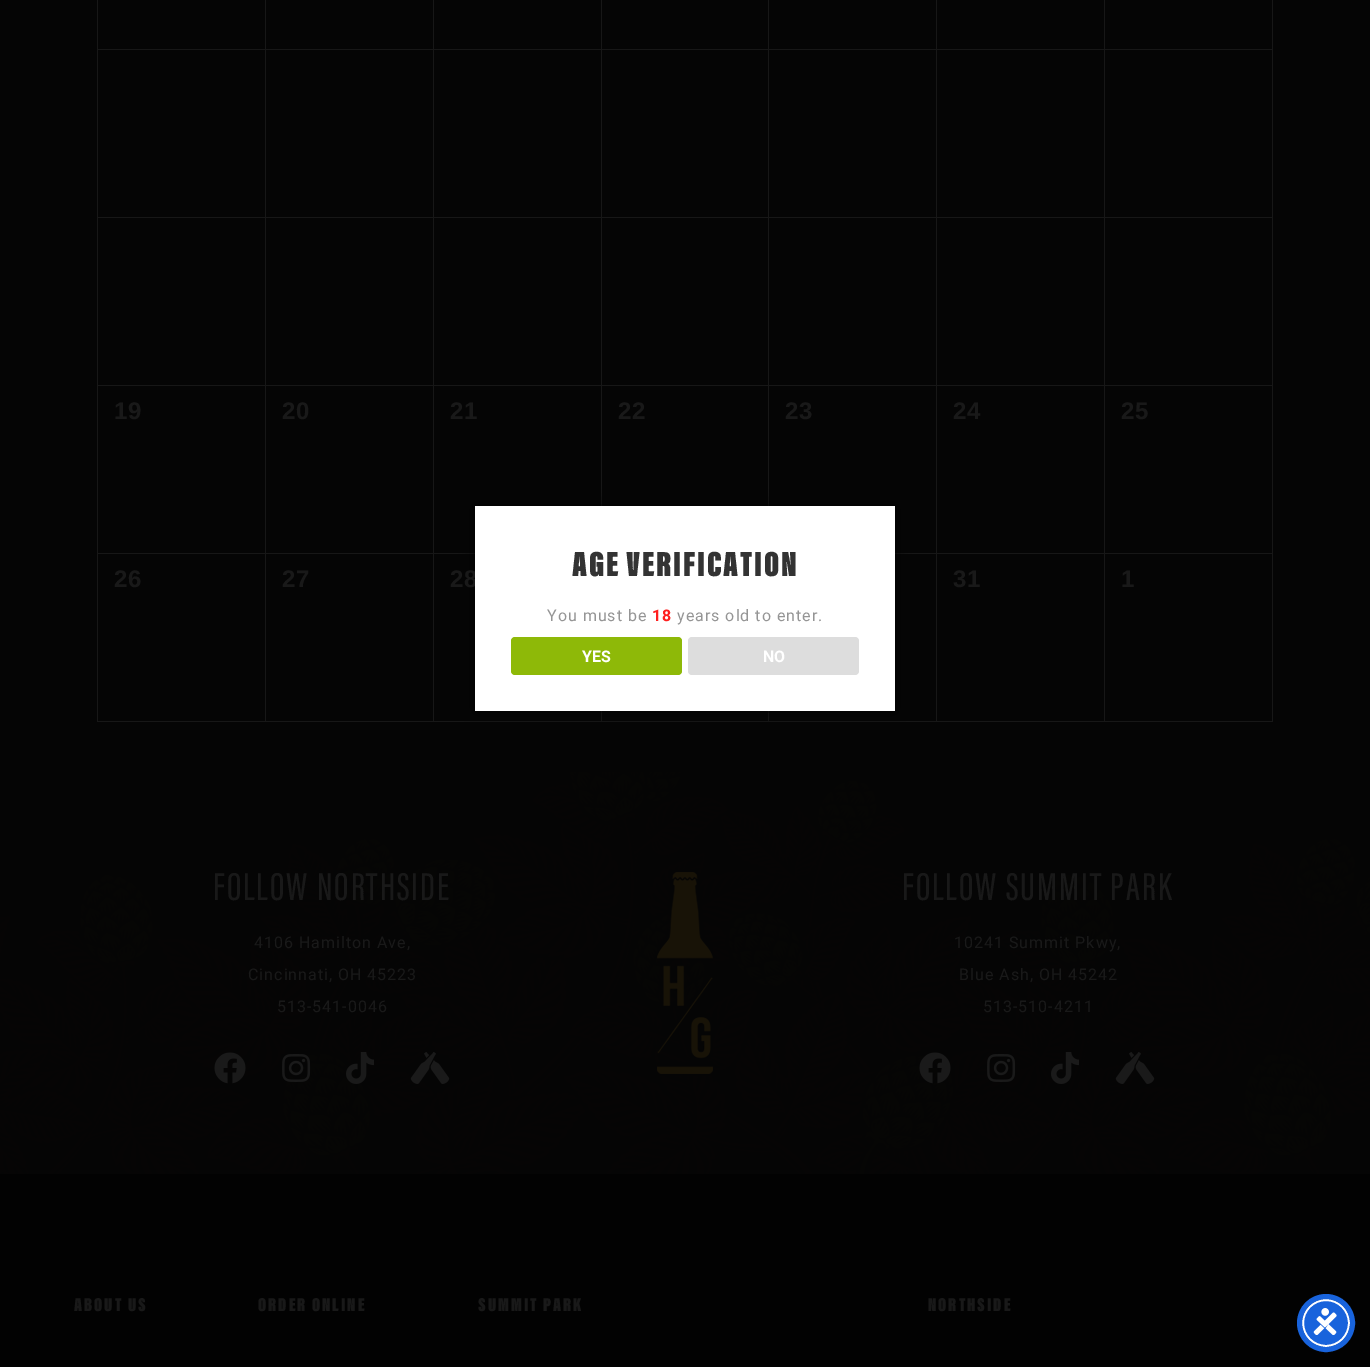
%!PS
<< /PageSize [1370 1367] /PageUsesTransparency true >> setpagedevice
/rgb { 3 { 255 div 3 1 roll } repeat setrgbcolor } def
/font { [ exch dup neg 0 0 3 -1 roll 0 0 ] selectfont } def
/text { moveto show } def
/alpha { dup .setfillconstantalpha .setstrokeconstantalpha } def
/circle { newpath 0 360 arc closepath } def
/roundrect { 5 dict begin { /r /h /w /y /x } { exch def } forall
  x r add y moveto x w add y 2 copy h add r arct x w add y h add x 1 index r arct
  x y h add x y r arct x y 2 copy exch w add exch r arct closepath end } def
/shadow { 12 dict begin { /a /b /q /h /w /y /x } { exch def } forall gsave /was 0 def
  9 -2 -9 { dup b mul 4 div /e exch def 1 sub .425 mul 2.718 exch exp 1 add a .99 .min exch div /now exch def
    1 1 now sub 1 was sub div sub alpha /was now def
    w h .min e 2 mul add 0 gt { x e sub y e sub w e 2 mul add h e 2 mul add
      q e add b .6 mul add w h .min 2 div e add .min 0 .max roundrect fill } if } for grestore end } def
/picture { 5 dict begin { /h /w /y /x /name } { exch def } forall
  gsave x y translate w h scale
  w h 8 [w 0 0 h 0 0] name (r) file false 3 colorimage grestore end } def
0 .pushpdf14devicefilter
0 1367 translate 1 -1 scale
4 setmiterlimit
5 5 5 rgb
0 0 1370 1367 rectfill
23 23 23 rgb
97 0 1 722 rectfill
265 0 1 722 rectfill
98 49 168 1 rectfill
433 0 1 722 rectfill
266 49 168 1 rectfill
601 0 1 506 rectfill
434 49 168 1 rectfill
768 0 1 506 rectfill
602 49 167 1 rectfill
936 0 1 722 rectfill
769 49 168 1 rectfill
1104 0 1 722 rectfill
937 49 168 1 rectfill
1272 0 1 722 rectfill
1105 49 168 1 rectfill
98 217 1175 1 rectfill
98 385 1175 1 rectfill
98 553 377 1 rectfill
895 553 378 1 rectfill
98 721 336 1 rectfill
601 711 1 11 rectfill
434 721 168 1 rectfill
768 711 1 11 rectfill
602 721 671 1 rectfill
0 0 0 rgb
475 506 420 205 0 7.5 1 shadow
(img_01.rgb) 0 772 1370 402 picture
(img_02.rgb) 214 1052 32 32 picture
(img_03.rgb) 282 1054 29 28 picture
(img_04.rgb) 346 1052 28 32 picture
(img_05.rgb) 410 1052 40 32 picture
(img_06.rgb) 657 870 56 206 picture
(img_07.rgb) 919 1052 32 32 picture
(img_08.rgb) 987 1054 29 28 picture
(img_09.rgb) 1051 1052 28 32 picture
(img_10.rgb) 1115 1052 40 32 picture
2 2 2 rgb
0 1174 1370 193 rectfill
93 100 148 rgb
1302 1301 48 48 24 2 0.2 shadow
24 99 220 rgb
1326 1323 23 circle gsave fill grestore
255 255 255 rgb
2 setlinewidth
stroke
24 99 220 rgb
5 setlinewidth
1326 1323 26.5 circle stroke
(img_11.rgb) 1313 1308 24 27 picture
/LiberationSans-Bold 24 font
25 25 25 rgb
114 419 moveto 1 0 (19) ashow
282 419 moveto 1 0 (20) ashow
450 419 moveto 1 0 (21) ashow
618 419 moveto 1 0 (22) ashow
785 419 moveto 1 0 (23) ashow
953 419 moveto 1 0 (24) ashow
1121 419 moveto 1 0 (25) ashow
114 587 moveto 1 0 (26) ashow
282 587 moveto 1 0 (27) ashow
450 587 moveto 1 0 (28) ashow
953 587 moveto 1 0 (31) ashow
1121 587 moveto 1 0 (1) ashow
255 255 255 rgb
475 506 420 205 rectfill
/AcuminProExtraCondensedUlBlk-ExtraBold 36 font
51 51 51 rgb
572 576 moveto 1.75 0 (AGE VERIFICATION) ashow
/Roboto-Regular 16 font
149 149 149 rgb
547 621 moveto 1 0 (You must be) ashow
/Roboto-Bold 16 font
255 31 31 rgb
652 621 moveto 1 0 (18) ashow
/Roboto-Regular 16 font
149 149 149 rgb
677 621 moveto 1 0 (years old to enter.) ashow
142 185 8 rgb
511 637 171 38 4 roundrect fill
/Roboto-Bold 16 font
255 255 255 rgb
(YES) 582 662 text
221 221 221 rgb
688 637 171 38 4 roundrect fill
255 255 255 rgb
(NO) 763 662 text
/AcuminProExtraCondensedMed-Medium 40 font
25 25 25 rgb
213 900 moveto 2 0 (FOLLOW NORTHSIDE) ashow
/Roboto-Regular 16 font
254 948 moveto 1 0 (4106 Hamilton Ave,) ashow
248 980 moveto 1 0 (Cincinnati, OH 45223) ashow
277 1012 moveto 1 0 (513-541-0046) ashow
/AcuminProExtraCondensedMed-Medium 40 font
902 900 moveto 2 0 (FOLLOW SUMMIT PARK) ashow
/Roboto-Regular 16 font
954 948 moveto 1 0 (10241 Summit Pkwy,) ashow
959 980 moveto 1 0 (Blue Ash, OH 45242) ashow
983 1012 moveto 1 0 (513-510-4211) ashow
/AcuminProExtraCondensedUlBlk-ExtraBold 19.25 font
74 1311 moveto 2 0 (ABOUT US) ashow
258 1311 moveto 2 0 (ORDER ONLINE) ashow
478 1311 moveto 2 0 (SUMMIT PARK) ashow
928 1311 moveto 2 0 (NORTHSIDE) ashow
.poppdf14devicefilter showpage
